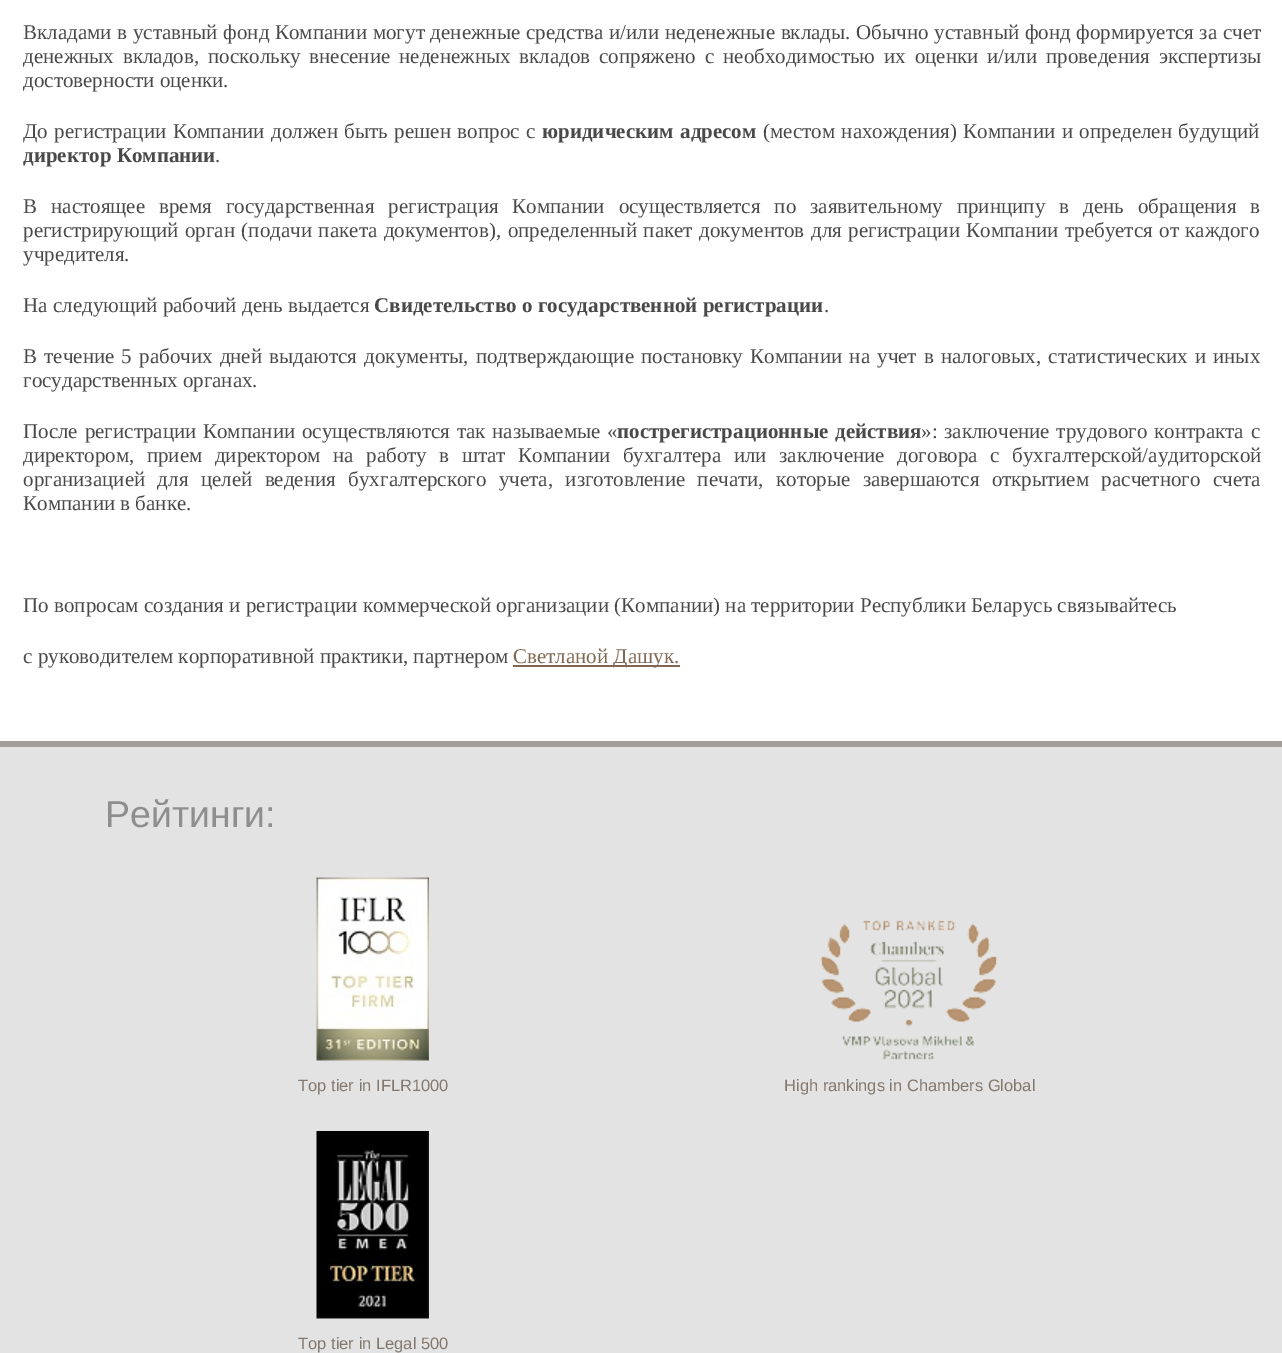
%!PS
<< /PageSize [1282 1353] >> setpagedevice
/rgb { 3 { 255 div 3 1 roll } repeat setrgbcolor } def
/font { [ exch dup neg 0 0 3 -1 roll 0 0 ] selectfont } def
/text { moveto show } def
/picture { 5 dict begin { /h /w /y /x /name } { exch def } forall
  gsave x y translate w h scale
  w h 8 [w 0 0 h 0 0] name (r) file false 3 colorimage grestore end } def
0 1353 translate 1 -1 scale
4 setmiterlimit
255 255 255 rgb
0 0 1282 1353 rectfill
127 103 81 rgb
513 665 167 2 rectfill
227 227 227 rgb
0 747 1282 606 rectfill
161 158 155 rgb
0 741 1282 6 rectfill
(img_01.rgb) 316 877 113 184 picture
(img_02.rgb) 820 920 178 140 picture
(img_03.rgb) 316 1131 113 188 picture
/LiberationSerif-Regular 21 font
73 73 73 rgb
23 39 moveto 0.4 0 32 (Вкладами в уставный фонд Компании могут денежные средства и/или неденежные вклады. Обычно уставный фонд формируется за счет) widthshow
23 63 moveto 3.6 0 32 (денежных вкладов, поскольку внесение неденежных вкладов сопряжено с необходимостью их оценки и/или проведения экспертизы) widthshow
(достоверности оценки.) 23 87 text
23 138 moveto 1.25 0 32 (До регистрации Компании должен быть решен вопрос с) widthshow
/LiberationSerif-Bold 21 font
542 138 moveto 1.25 0 32 (юридическим адресом) widthshow
/LiberationSerif-Regular 21 font
763 138 moveto 1.25 0 32 (\(местом нахождения\) Компании и определен будущий) widthshow
/LiberationSerif-Bold 21 font
(директор Компании) 23 162 text
/LiberationSerif-Regular 21 font
(.) 215 162 text
23 213 moveto 8.75 0 32 (В настоящее время государственная регистрация Компании осуществляется по заявительному принципу в день обращения в) widthshow
23 237 moveto 1.25 0 32 (регистрирующий орган \(подачи пакета документов\), определенный пакет документов для регистрации Компании требуется от каждого) widthshow
(учредителя.) 23 261 text
(На следующий рабочий день выдается) 23 312 text
/LiberationSerif-Bold 21 font
(Свидетельство о государственной регистрации) 374 312 text
/LiberationSerif-Regular 21 font
(.) 824 312 text
23 363 moveto 1.9 0 32 (В течение 5 рабочих дней выдаются документы, подтверждающие постановку Компании на учет в налоговых, статистических и иных) widthshow
(государственных органах.) 23 387 text
23 438 moveto 1.5 0 32 (После регистрации Компании осуществляются так называемые «) widthshow
/LiberationSerif-Bold 21 font
617 438 moveto 1.5 0 32 (пострегистрационные действия) widthshow
/LiberationSerif-Regular 21 font
921 438 moveto 1.5 0 32 (»: заключение трудового контракта с) widthshow
23 462 moveto 7.25 0 32 (директором, прием директором на работу в штат Компании бухгалтера или заключение договора с бухгалтерской/аудиторской) widthshow
23 486 moveto 7.1 0 32 (организацией для целей ведения бухгалтерского учета, изготовление печати, которые завершаются открытием расчетного счета) widthshow
(Компании в банке.) 23 510 text
(По вопросам создания и регистрации коммерческой организации \(Компании\) на территории Республики Беларусь связывайтесь) 23 612 text
(с руководителем корпоративной практики, партнером) 23 663 text
127 103 81 rgb
(Светланой Дашук.) 513 663 text
/LiberationSans-Regular 37.5 font
142 142 142 rgb
(Рейтинги:) 105 827 text
/LiberationSans-Regular 16.5 font
131 120 110 rgb
(Top tier in IFLR1000) 298 1091 text
(High rankings in Chambers Global) 784 1091 text
(Top tier in Legal 500) 298 1349 text
showpage
